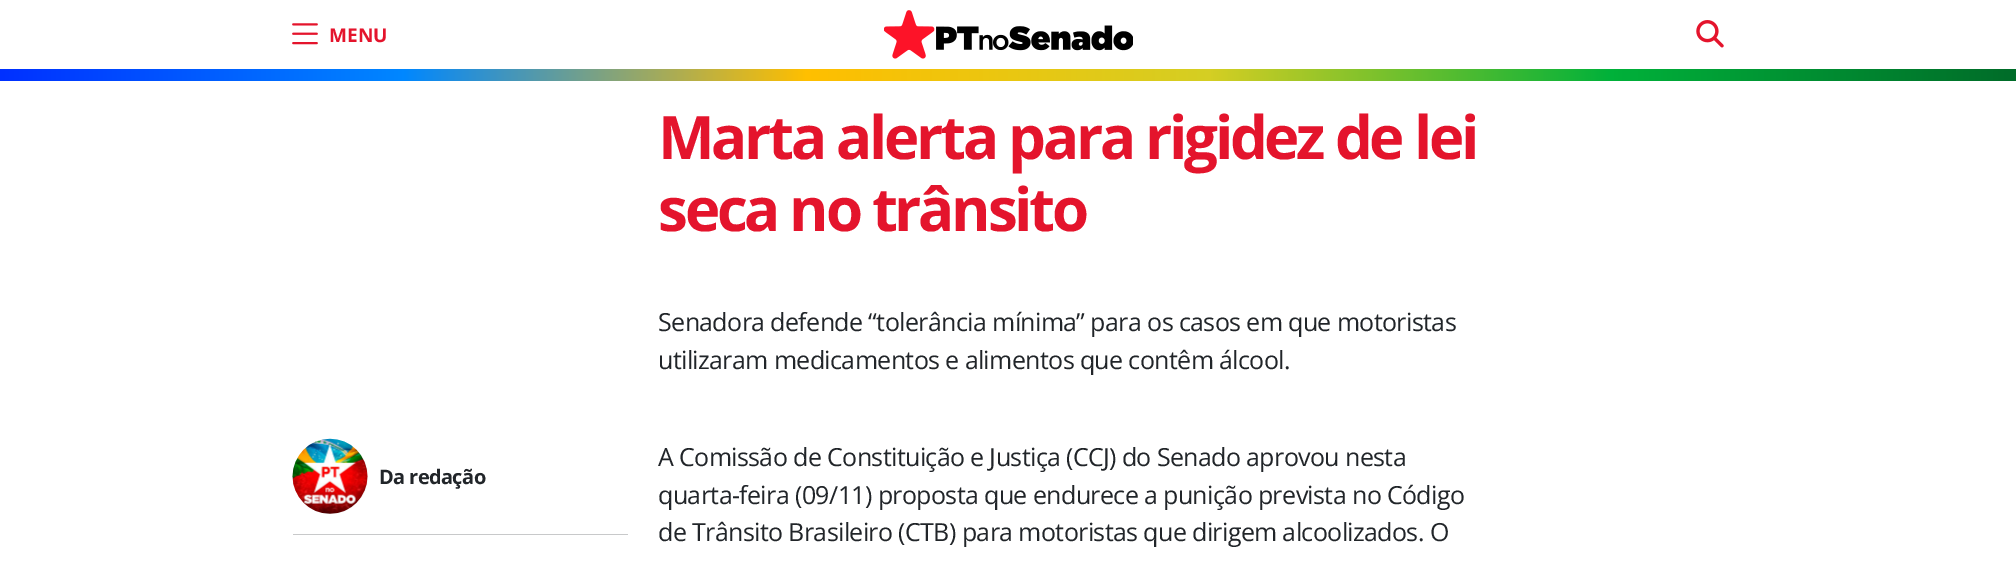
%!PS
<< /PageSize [2016 564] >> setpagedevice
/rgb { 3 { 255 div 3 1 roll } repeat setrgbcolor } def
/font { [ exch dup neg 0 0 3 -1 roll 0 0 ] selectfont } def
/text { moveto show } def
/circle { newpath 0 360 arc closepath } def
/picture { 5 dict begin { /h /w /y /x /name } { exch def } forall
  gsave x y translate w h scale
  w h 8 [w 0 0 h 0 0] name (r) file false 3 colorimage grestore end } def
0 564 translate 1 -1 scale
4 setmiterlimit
255 255 255 rgb
0 0 2016 564 rectfill
(img_01.rgb) 292 23 26 22 picture
(img_02.rgb) 884 10 249 49 picture
(img_03.rgb) 1696 20 28 28 picture
gsave 0 69 moveto 2016 0 rlineto 0 12 rlineto -2016 0 rlineto closepath clip newpath
<< /ShadingType 2 /ColorSpace /DeviceRGB /Coords [0 75 2016 75] /Extend [true true] /Function << /FunctionType 3 /Domain [0 1] /Functions [<< /FunctionType 2 /Domain [0 1] /C0 [0 0.188 1] /C1 [0 0.529 1] /N 1 >> << /FunctionType 2 /Domain [0 1] /C0 [0 0.529 1] /C1 [1 0.749 0] /N 1 >> << /FunctionType 2 /Domain [0 1] /C0 [1 0.749 0] /C1 [0.835 0.808 0.137] /N 1 >> << /FunctionType 2 /Domain [0 1] /C0 [0.835 0.808 0.137] /C1 [0 0.694 0.227] /N 1 >> << /FunctionType 2 /Domain [0 1] /C0 [0 0.694 0.227] /C1 [0.004 0.424 0.161] /N 1 >>] /Bounds [0.2 0.4 0.6 0.8] /Encode [0 1 0 1 0 1 0 1 0 1] >> >> shfill grestore
242 242 242 rgb
330.5 476.5 37.5 circle fill
(img_04.rgb) 292 438 76 76 picture
200 201 202 rgb
293 534 335 1 rectfill
/OpenSans-Bold 19 font
228 20 44 rgb
(MENU) 329 42 text
/OpenSans-Bold 60 font
658 159 moveto -3.3 0 (Marta alerta para rigidez de lei) ashow
658 231 moveto -3.3 0 (seca no trânsito) ashow
/OpenSans-Regular 25 font
33 37 41 rgb
658 331 moveto -0.62 0 (Senadora defende “tolerância mínima” para os casos em que motoristas) ashow
658 369 moveto -0.62 0 (utilizaram medicamentos e alimentos que contêm álcool.) ashow
/OpenSans-Bold 20 font
379 484 moveto -0.62 0 (Da redação) ashow
/OpenSans-Regular 25 font
658 466 moveto -0.62 0 (A Comissão de Constituição e Justiça \(CCJ\) do Senado aprovou nesta) ashow
658 504 moveto -0.62 0 (quarta-feira \(09/11\) proposta que endurece a punição prevista no Código) ashow
658 541 moveto -0.62 0 (de Trânsito Brasileiro \(CTB\) para motoristas que dirigem alcoolizados. O) ashow
showpage
